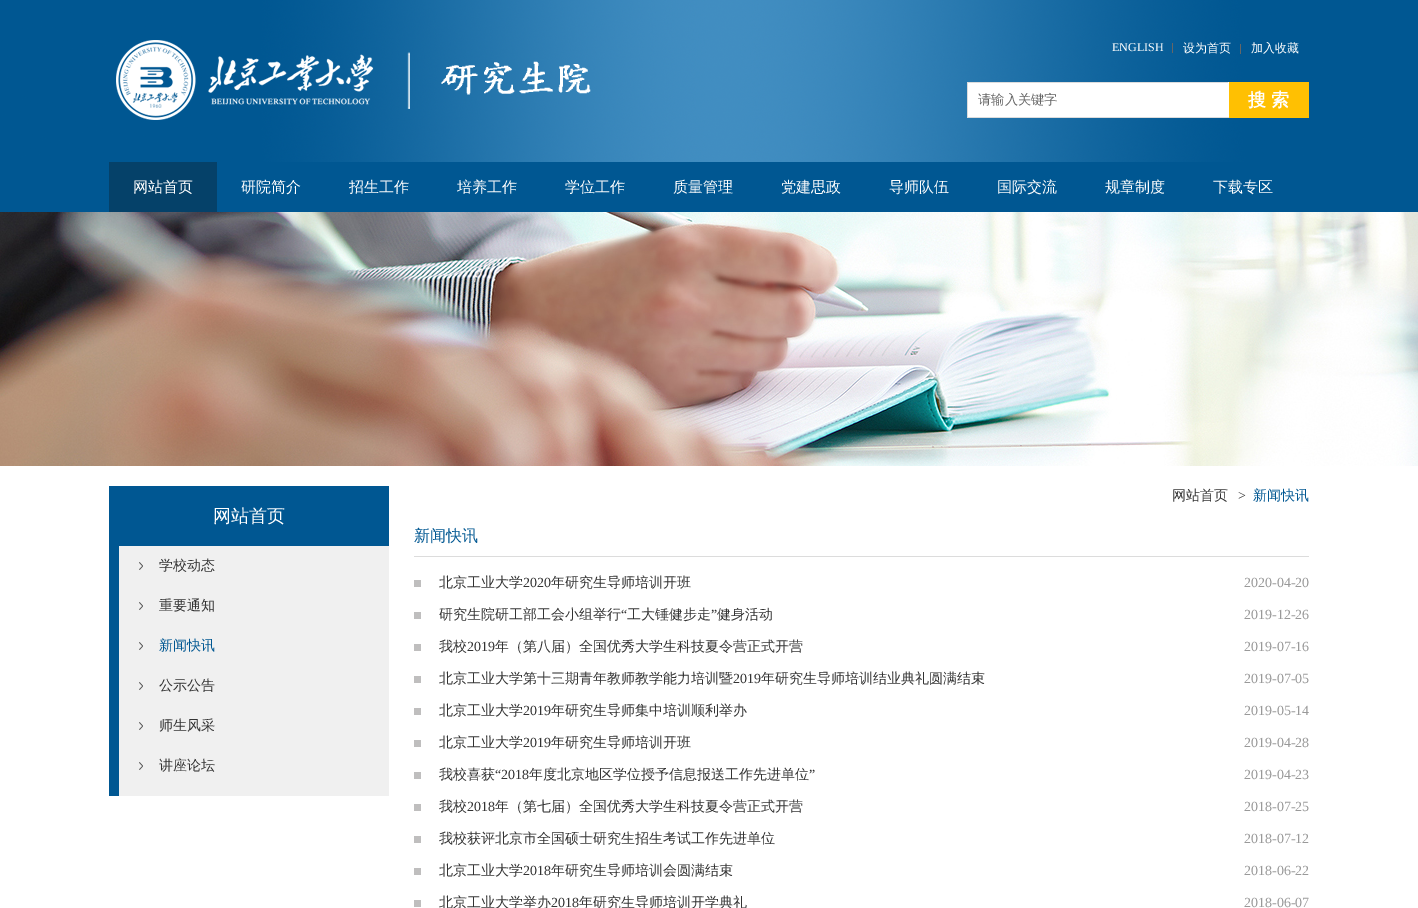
%!PS
<< /PageSize [1418 908] >> setpagedevice
/rgb { 3 { 255 div 3 1 roll } repeat setrgbcolor } def
/font { [ exch dup neg 0 0 3 -1 roll 0 0 ] selectfont } def
/text { moveto show } def
/picture { 5 dict begin { /h /w /y /x /name } { exch def } forall
  gsave x y translate w h scale
  w h 8 [w 0 0 h 0 0] name (r) file false 3 colorimage grestore end } def
0 908 translate 1 -1 scale
4 setmiterlimit
255 255 255 rgb
0 0 1418 908 rectfill
(img_01.rgb) 0 0 1418 162 picture
(img_02.rgb) 116 40 475 80 picture
102 102 102 rgb
1172 43 1 10 rectfill
1240 44 1 10 rectfill
255 255 255 rgb
968 83 260 34 rectfill
220 220 220 rgb
967 82 262 1 rectfill
255 255 255 rgb
1228 82 1 36 rectfill
220 220 220 rgb
967 117 262 1 rectfill
967 82 1 36 rectfill
255 192 2 rgb
1229 82 80 36 rectfill
0 87 146 rgb
0 162 1418 50 rectfill
5 65 105 rgb
109 162 108 50 rectfill
(img_03.rgb) 0 212 1418 254 picture
0 87 146 rgb
109 486 280 60 rectfill
240 240 240 rgb
119 546 270 250 rectfill
0 87 146 rgb
109 546 10 250 rectfill
(img_04.rgb) 139 562 4 8 picture
(img_04.rgb) 139 602 4 8 picture
(img_04.rgb) 139 642 4 8 picture
(img_04.rgb) 139 682 4 8 picture
(img_04.rgb) 139 722 4 8 picture
(img_04.rgb) 139 762 4 8 picture
220 220 220 rgb
414 556 895 1 rectfill
191 190 190 rgb
414 580 7 7 rectfill
414 612 7 7 rectfill
414 644 7 7 rectfill
414 676 7 7 rectfill
414 708 7 7 rectfill
414 740 7 7 rectfill
414 772 7 7 rectfill
414 804 7 7 rectfill
414 836 7 7 rectfill
414 868 7 7 rectfill
414 900 7 7 rectfill
/LiberationSerif-Regular 12 font
255 255 255 rgb
(ENGLISH) 1112 51 text
/WenQuanYiZenHei-Medium 12 font
(设为首页) 1183 52 text
(加入收藏) 1251 52 text
/WenQuanYiZenHei-Medium 13.25 font
102 102 102 rgb
(请输入关键字) 978 104 text
/WenQuanYiZenHei-Bold 18 font
255 255 255 rgb
(搜 索) 1248 106 text
/WenQuanYiZenHei-Medium 15 font
(网站首页) 133 192 text
(研院简介) 241 192 text
(招生工作) 349 192 text
(培养工作) 457 192 text
(学位工作) 565 192 text
(质量管理) 673 192 text
(党建思政) 781 192 text
(导师队伍) 889 192 text
(国际交流) 997 192 text
(规章制度) 1105 192 text
(下载专区) 1213 192 text
/WenQuanYiZenHei-Medium 18 font
(网站首页) 213 522 text
/WenQuanYiZenHei-Medium 14 font
51 51 51 rgb
(学校动态) 159 570 text
(重要通知) 159 610 text
0 87 146 rgb
(新闻快讯) 159 650 text
51 51 51 rgb
(公示公告) 159 690 text
(师生风采) 159 730 text
(讲座论坛) 159 770 text
(网站首页) 1172 500 text
/LiberationSerif-Regular 14 font
(>) 1238 500 text
/WenQuanYiZenHei-Medium 14 font
0 87 146 rgb
(新闻快讯) 1253 500 text
/WenQuanYiZenHei-Medium 16 font
(新闻快讯) 414 541 text
/WenQuanYiZenHei-Medium 14 font
51 51 51 rgb
(北京工业大学) 439 587 text
/LiberationSerif-Regular 14 font
(2020) 523 587 text
/WenQuanYiZenHei-Medium 14 font
(年研究生导师培训开班) 551 587 text
/LiberationSerif-Regular 14 font
153 153 153 rgb
(2020-04-20) 1244 587 text
/WenQuanYiZenHei-Medium 14 font
51 51 51 rgb
(研究生院研工部工会小组举行) 439 619 text
/LiberationSerif-Regular 14 font
(“) 621 619 text
/WenQuanYiZenHei-Medium 14 font
(工大锤健步走) 627 619 text
/LiberationSerif-Regular 14 font
(”) 711 619 text
/WenQuanYiZenHei-Medium 14 font
(健身活动) 717 619 text
/LiberationSerif-Regular 14 font
153 153 153 rgb
(2019-12-26) 1244 619 text
/WenQuanYiZenHei-Medium 14 font
51 51 51 rgb
(我校) 439 651 text
/LiberationSerif-Regular 14 font
(2019) 467 651 text
/WenQuanYiZenHei-Medium 14 font
(年（第八届）全国优秀大学生科技夏令营正式开营) 495 651 text
/LiberationSerif-Regular 14 font
153 153 153 rgb
(2019-07-16) 1244 651 text
/WenQuanYiZenHei-Medium 14 font
51 51 51 rgb
(北京工业大学第十三期青年教师教学能力培训暨) 439 683 text
/LiberationSerif-Regular 14 font
(2019) 733 683 text
/WenQuanYiZenHei-Medium 14 font
(年研究生导师培训结业典礼圆满结束) 761 683 text
/LiberationSerif-Regular 14 font
153 153 153 rgb
(2019-07-05) 1244 683 text
/WenQuanYiZenHei-Medium 14 font
51 51 51 rgb
(北京工业大学) 439 715 text
/LiberationSerif-Regular 14 font
(2019) 523 715 text
/WenQuanYiZenHei-Medium 14 font
(年研究生导师集中培训顺利举办) 551 715 text
/LiberationSerif-Regular 14 font
153 153 153 rgb
(2019-05-14) 1244 715 text
/WenQuanYiZenHei-Medium 14 font
51 51 51 rgb
(北京工业大学) 439 747 text
/LiberationSerif-Regular 14 font
(2019) 523 747 text
/WenQuanYiZenHei-Medium 14 font
(年研究生导师培训开班) 551 747 text
/LiberationSerif-Regular 14 font
153 153 153 rgb
(2019-04-28) 1244 747 text
/WenQuanYiZenHei-Medium 14 font
51 51 51 rgb
(我校喜获) 439 779 text
/LiberationSerif-Regular 14 font
(“2018) 495 779 text
/WenQuanYiZenHei-Medium 14 font
(年度北京地区学位授予信息报送工作先进单位) 529 779 text
/LiberationSerif-Regular 14 font
(”) 809 779 text
153 153 153 rgb
(2019-04-23) 1244 779 text
/WenQuanYiZenHei-Medium 14 font
51 51 51 rgb
(我校) 439 811 text
/LiberationSerif-Regular 14 font
(2018) 467 811 text
/WenQuanYiZenHei-Medium 14 font
(年（第七届）全国优秀大学生科技夏令营正式开营) 495 811 text
/LiberationSerif-Regular 14 font
153 153 153 rgb
(2018-07-25) 1244 811 text
/WenQuanYiZenHei-Medium 14 font
51 51 51 rgb
(我校获评北京市全国硕士研究生招生考试工作先进单位) 439 843 text
/LiberationSerif-Regular 14 font
153 153 153 rgb
(2018-07-12) 1244 843 text
/WenQuanYiZenHei-Medium 14 font
51 51 51 rgb
(北京工业大学) 439 875 text
/LiberationSerif-Regular 14 font
(2018) 523 875 text
/WenQuanYiZenHei-Medium 14 font
(年研究生导师培训会圆满结束) 551 875 text
/LiberationSerif-Regular 14 font
153 153 153 rgb
(2018-06-22) 1244 875 text
/WenQuanYiZenHei-Medium 14 font
51 51 51 rgb
(北京工业大学举办) 439 907 text
/LiberationSerif-Regular 14 font
(2018) 551 907 text
/WenQuanYiZenHei-Medium 14 font
(年研究生导师培训开学典礼) 579 907 text
/LiberationSerif-Regular 14 font
153 153 153 rgb
(2018-06-07) 1244 907 text
showpage
